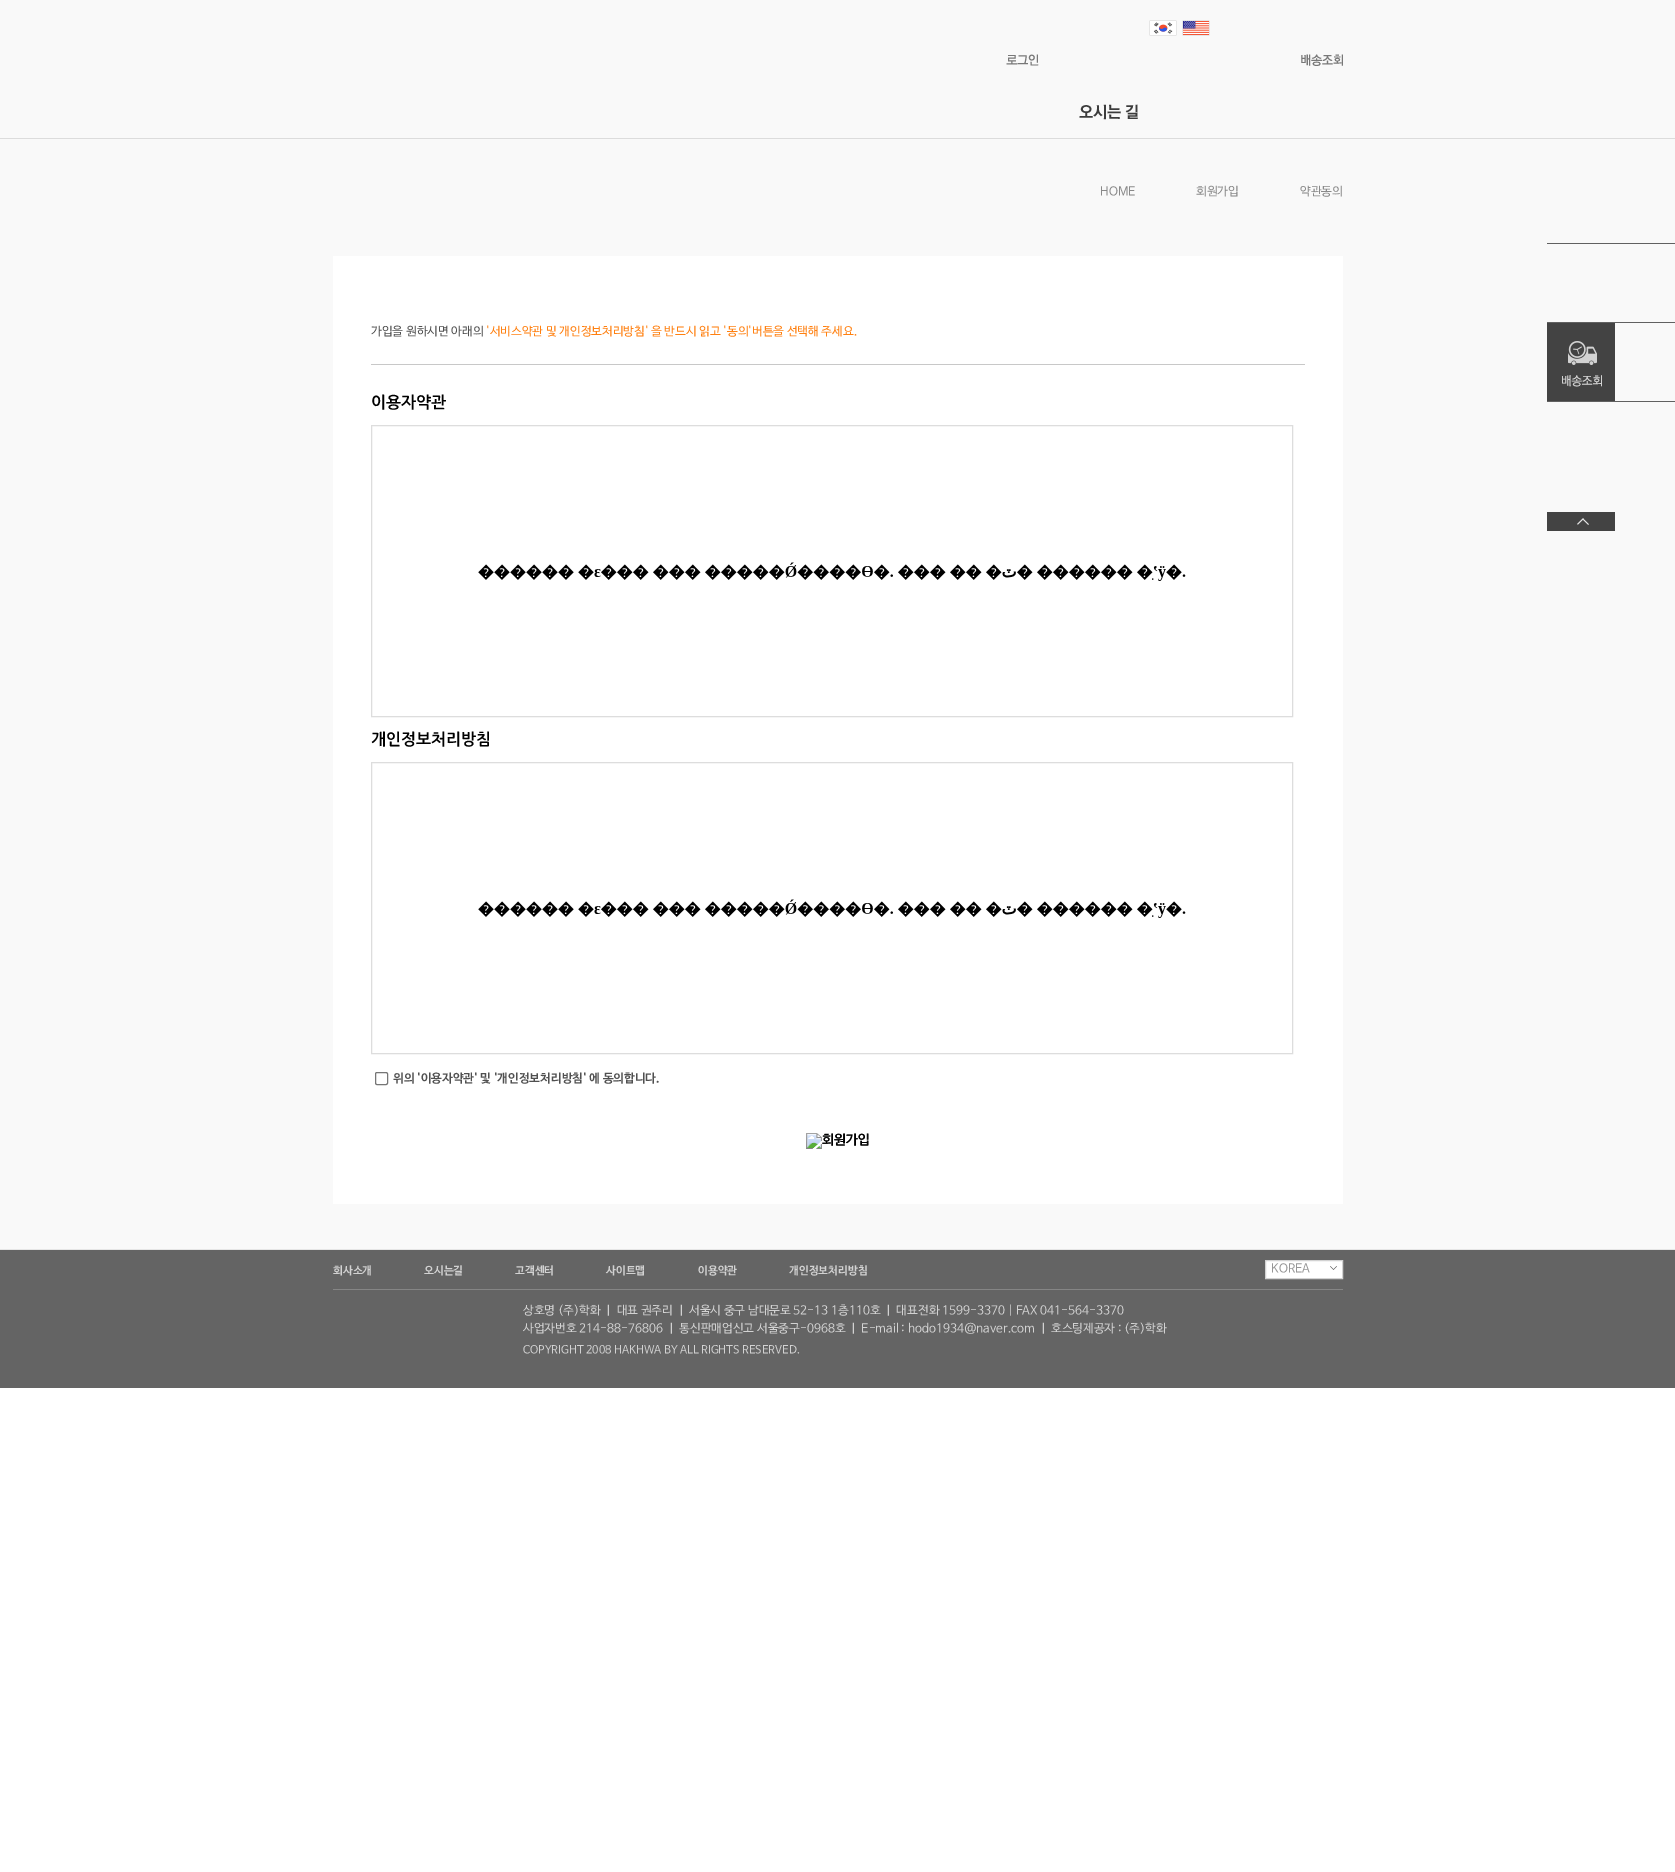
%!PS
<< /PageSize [1675 1872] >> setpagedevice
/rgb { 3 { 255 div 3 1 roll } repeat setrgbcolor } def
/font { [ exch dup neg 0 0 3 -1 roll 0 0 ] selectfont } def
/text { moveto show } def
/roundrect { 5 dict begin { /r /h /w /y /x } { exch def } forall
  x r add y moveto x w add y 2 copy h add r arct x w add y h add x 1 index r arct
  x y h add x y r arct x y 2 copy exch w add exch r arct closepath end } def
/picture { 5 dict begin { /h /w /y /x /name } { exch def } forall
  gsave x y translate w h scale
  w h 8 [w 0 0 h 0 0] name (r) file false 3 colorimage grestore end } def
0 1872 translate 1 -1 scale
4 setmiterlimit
255 255 255 rgb
0 0 1675 1872 rectfill
249 249 249 rgb
0 0 1675 1249 rectfill
220 220 220 rgb
0 138 1675 1 rectfill
(img_01.rgb) 1149 20 28 16 picture
(img_02.rgb) 1182 20 28 16 picture
(img_03.rgb) 1006 54 33 12 picture
(img_04.rgb) 1301 54 42 12 picture
(img_05.rgb) 1079 104 59 16 picture
97 97 97 rgb
1547 243 128 1 rectfill
1547 322 128 1 rectfill
1547 401 128 1 rectfill
(img_06.rgb) 1547 323 68 78 picture
(img_07.rgb) 1547 512 68 19 picture
255 255 255 rgb
333 256 1010 948 rectfill
200 200 200 rgb
371 364 934 1 rectfill
221 221 221 rgb
371.5 425.5 921 291 rectstroke
(img_08.rgb) 478 562 708 19 picture
371.5 762.5 921 291 rectstroke
(img_08.rgb) 478 899 708 19 picture
118 118 118 rgb
375.5 1072.5 12 12 1.5 roundrect stroke
(img_09.rgb) 806 1133 62 16 picture
100 100 100 rgb
0 1250 1675 138 rectfill
230 230 230 rgb
0 1249 1675 1 rectfill
133 133 133 rgb
333 1289 1010 1 rectfill
255 255 255 rgb
1265.5 1260.5 moveto 77 0 rlineto 0 18 rlineto -77 0 rlineto closepath gsave fill grestore
210 210 210 rgb
stroke
(img_10.rgb) 1330 1266 7 4 picture
/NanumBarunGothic-Regular 12 font
137 137 137 rgb
(HOME) 1100 195 text
(회원가입) 1196 195 text
(약관동의) 1300 195 text
80 80 80 rgb
(가입을 원하시면 아래의) 371 335 text
255 128 16 rgb
('서비스약관 및 개인정보처리방침' 을 반드시 읽고 '동의'버튼을 선택해 주세요.) 486 335 text
/NanumGothic-Bold 16 font
0 0 0 rgb
(이용자약관) 371 408 text
(개인정보처리방침) 371 745 text
/NanumBarunGothic-Bold 12 font
80 80 80 rgb
(위의 '이용자약관' 및 '개인정보처리방침' 에 동의합니다.) 393 1082 text
/NanumBarunGothic-Regular 13.5 font
0 0 0 rgb
(회원가입) 822 1144 text
/NanumBarunGothic-Bold 11 font
210 210 210 rgb
(회사소개) 333 1274 text
(오시는길) 424 1274 text
(고객센터) 515 1274 text
(사이트맵) 606 1274 text
(이용약관) 698 1274 text
(개인정보처리방침) 789 1274 text
/NanumBarunGothic-Regular 12 font
150 150 150 rgb
(KOREA) 1271 1272 text
210 210 210 rgb
(상호명 \(주\)학화 ㅣ 대표 권주리 ㅣ 서울시 중구 남대문로 52-13 1층110호 ㅣ 대표전화 1599-3370 | FAX 041-564-3370) 523 1314 text
(사업자번호 214-88-76806 ㅣ 통신판매업신고 서울중구-0968호 ㅣ E-mail : hodo1934@naver.com ㅣ 호스팅제공자 : \(주\)학화) 523 1332 text
/NanumBarunGothic-Regular 11 font
(COPYRIGHT 2008 HAKHWA BY ALL RIGHTS RESERVED.) 523 1353 text
showpage
